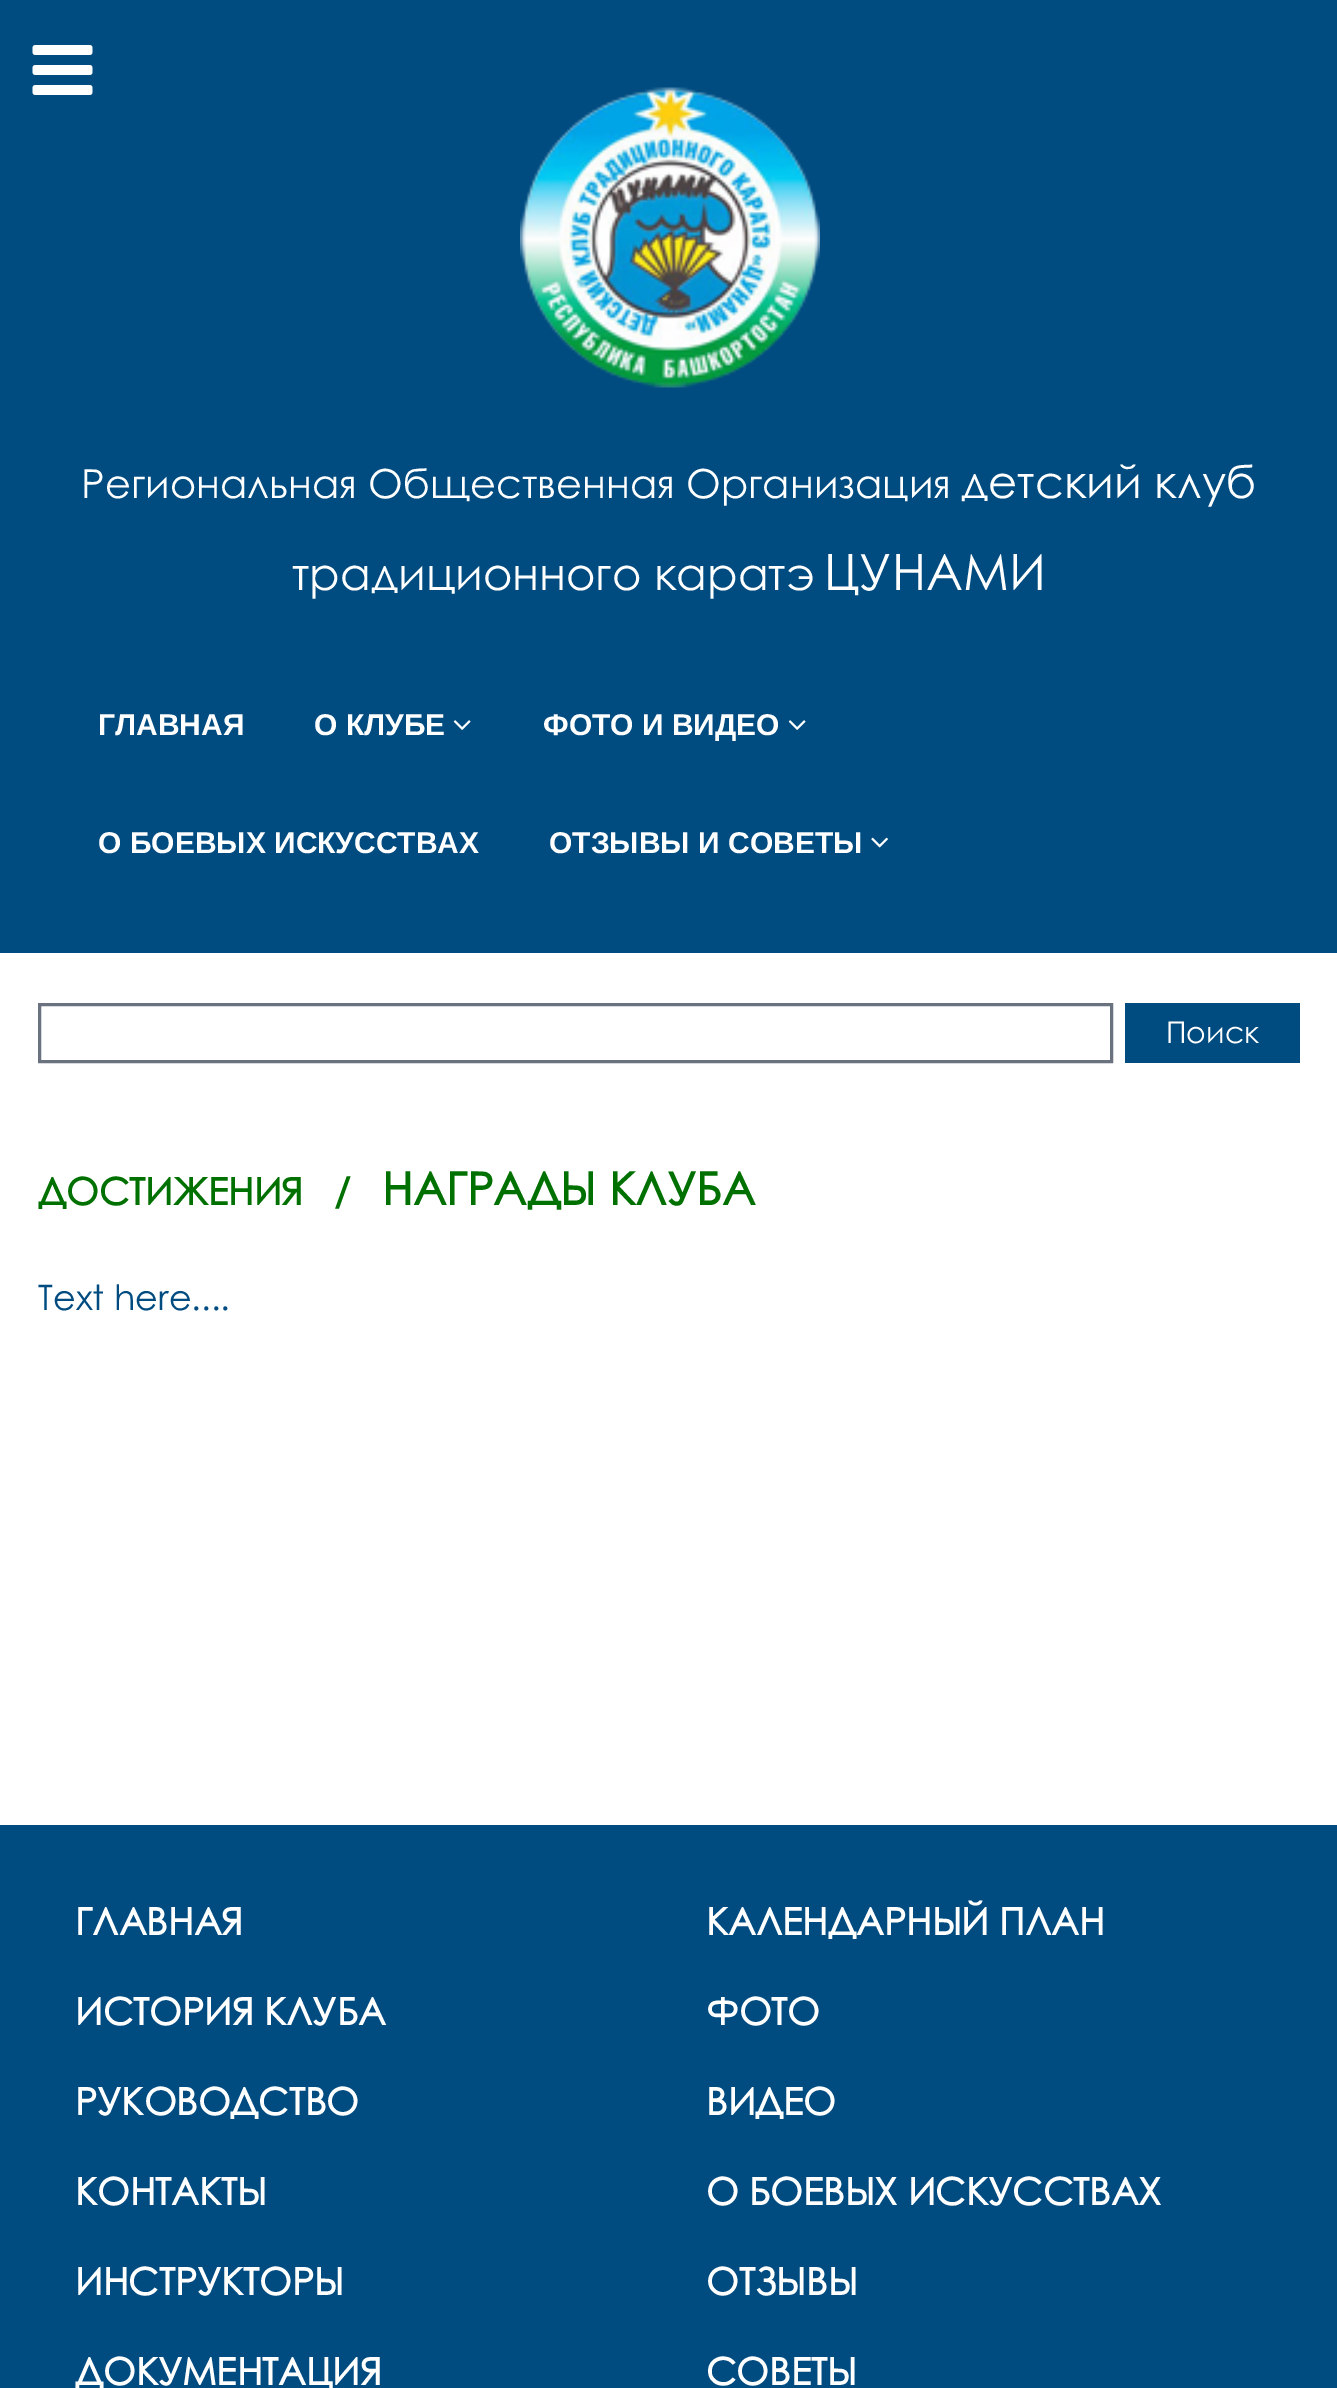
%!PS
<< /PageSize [1337 2388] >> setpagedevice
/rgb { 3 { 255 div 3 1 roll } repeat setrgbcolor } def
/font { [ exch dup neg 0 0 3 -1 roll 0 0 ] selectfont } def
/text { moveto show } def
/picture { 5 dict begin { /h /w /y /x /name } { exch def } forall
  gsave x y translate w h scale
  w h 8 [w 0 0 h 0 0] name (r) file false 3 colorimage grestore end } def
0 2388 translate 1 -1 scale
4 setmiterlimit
255 255 255 rgb
0 0 1337 2388 rectfill
0 75 128 rgb
0 0 1337 953 rectfill
(img_01.rgb) 32 45 61 50 picture
(img_02.rgb) 520 87 300 301 picture
(img_03.rgb) 453 720 18 10 picture
(img_03.rgb) 788 720 18 10 picture
(img_04.rgb) 871 837 17 11 picture
106 114 127 rgb
3 setlinewidth
39.5 1004.5 1072 57 rectstroke
0 75 128 rgb
1125 1003 175 60 rectfill
0 1825 1337 563 rectfill
/CenturyGothic-Regular 40 font
255 255 255 rgb
(Региональная Общественная Организация) 81 498 text
/CenturyGothic-Regular 45 font
(детский клуб) 961 498 text
(традиционного каратэ) 292 590 text
/CenturyGothic-Regular 50 font
(ЦУНАМИ) 824 590 text
/LiberationSans-Bold 30 font
(ГЛАВНАЯ) 98 735 text
(О КЛУБЕ) 314 735 text
(ФОТО И ВИДЕО) 543 735 text
(О БОЕВЫХ ИСКУССТВАХ) 98 853 text
(ОТЗЫВЫ И СОВЕТЫ) 549 853 text
/CenturyGothic-Regular 30 font
(Поиск) 1166 1043 text
/CenturyGothic-Bold 37.5 font
0 112 0 rgb
(ДОСТИЖЕНИЯ) 38 1205 text
(/) 334 1205 text
/CenturyGothic-Bold 45 font
(НАГРАДЫ КЛУБА) 382 1205 text
/CenturyGothic-Regular 35 font
0 75 128 rgb
(Text here....) 38 1310 text
/CenturyGothic-Bold 37.5 font
255 255 255 rgb
(ГЛАВНАЯ) 75 1935 text
(ИСТОРИЯ КЛУБА) 75 2025 text
(РУКОВОДСТВО) 75 2115 text
(КОНТАКТЫ) 75 2205 text
(ИНСТРУКТОРЫ) 75 2295 text
(ДОКУМЕНТАЦИЯ) 75 2385 text
(КАЛЕНДАРНЫЙ ПЛАН) 706 1935 text
(ФОТО) 706 2025 text
(ВИДЕО) 706 2115 text
(О БОЕВЫХ ИСКУССТВАХ) 706 2205 text
(ОТЗЫВЫ) 706 2295 text
(СОВЕТЫ) 706 2385 text
showpage
